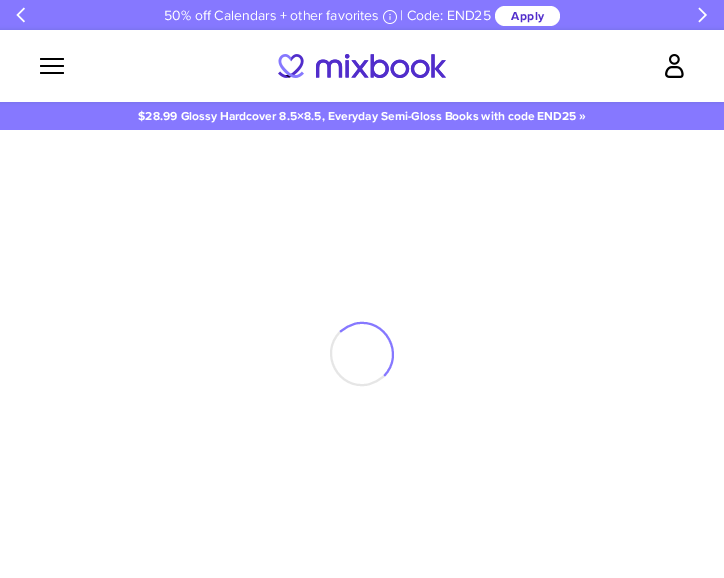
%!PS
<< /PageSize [724 578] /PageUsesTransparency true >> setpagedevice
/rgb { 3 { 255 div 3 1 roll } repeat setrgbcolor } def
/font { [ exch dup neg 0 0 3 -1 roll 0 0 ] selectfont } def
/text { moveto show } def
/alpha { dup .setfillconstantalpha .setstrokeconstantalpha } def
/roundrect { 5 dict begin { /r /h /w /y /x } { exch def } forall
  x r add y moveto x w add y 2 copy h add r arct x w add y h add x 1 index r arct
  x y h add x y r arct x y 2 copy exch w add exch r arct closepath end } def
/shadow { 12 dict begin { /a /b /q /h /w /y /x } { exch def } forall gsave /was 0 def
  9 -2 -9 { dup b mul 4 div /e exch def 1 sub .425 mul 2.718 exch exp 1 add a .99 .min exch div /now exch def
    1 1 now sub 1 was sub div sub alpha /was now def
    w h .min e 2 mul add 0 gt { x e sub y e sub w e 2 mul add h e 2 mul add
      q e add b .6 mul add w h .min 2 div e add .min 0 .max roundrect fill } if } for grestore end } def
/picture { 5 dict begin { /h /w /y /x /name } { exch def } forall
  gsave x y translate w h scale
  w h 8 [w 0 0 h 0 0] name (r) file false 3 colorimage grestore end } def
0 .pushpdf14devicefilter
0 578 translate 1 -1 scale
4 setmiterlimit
255 255 255 rgb
0 0 724 578 rectfill
134 120 255 rgb
0 0 724 30 rectfill
(img_01.rgb) 16 7 9 16 picture
(img_02.rgb) 383 10 14 14 picture
255 255 255 rgb
495 6 65 20 10 roundrect fill
(img_03.rgb) 698 7 9 16 picture
134 120 255 rgb
0 102 724 28 rectfill
gsave
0 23 moveto 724 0 rlineto 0 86 rlineto -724 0 rlineto closepath 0 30 moveto 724 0 rlineto 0 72 rlineto -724 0 rlineto closepath eoclip newpath
0 0 0 rgb
0 30 724 72 0 2 0.12 shadow
grestore
0 0 0 rgb
40 58 24 2 1 roundrect fill
40 65 24 2 1 roundrect fill
40 72 24 2 1 roundrect fill
(img_04.rgb) 278 54 168 24 picture
(img_05.rgb) 665 54 19 24 picture
134 120 255 rgb
2 setlinewidth
340 332 moveto 4.5 -4 10 -7 16 -8.5 rcurveto 29.5 -6 49.5 31 28 52.5 rcurveto stroke
230 230 230 rgb
384 376 moveto -4.5 4 -10 7 -16 8.5 rcurveto -29.5 6 -49.5 -31 -28 -52.5 rcurveto stroke
/ProximaNova-Regular 14 font
255 255 255 rgb
(50% off Calendars + other favorites) 164 20 text
(| Code: END25) 400 20 text
/ProximaNova-Bold 12 font
81 45 203 rgb
511 20 moveto 0.5 0 (Apply) ashow
255 255 255 rgb
($28.99 Glossy Hardcover 8.5) 138 120 text
/LiberationSans-Bold 12 font
(×) 297 120 text
/ProximaNova-Bold 12 font
(8.5, Everyday Semi-Gloss Books with code END25) 304 120 text
/LiberationSans-Bold 12 font
(») 579 120 text
.poppdf14devicefilter showpage
